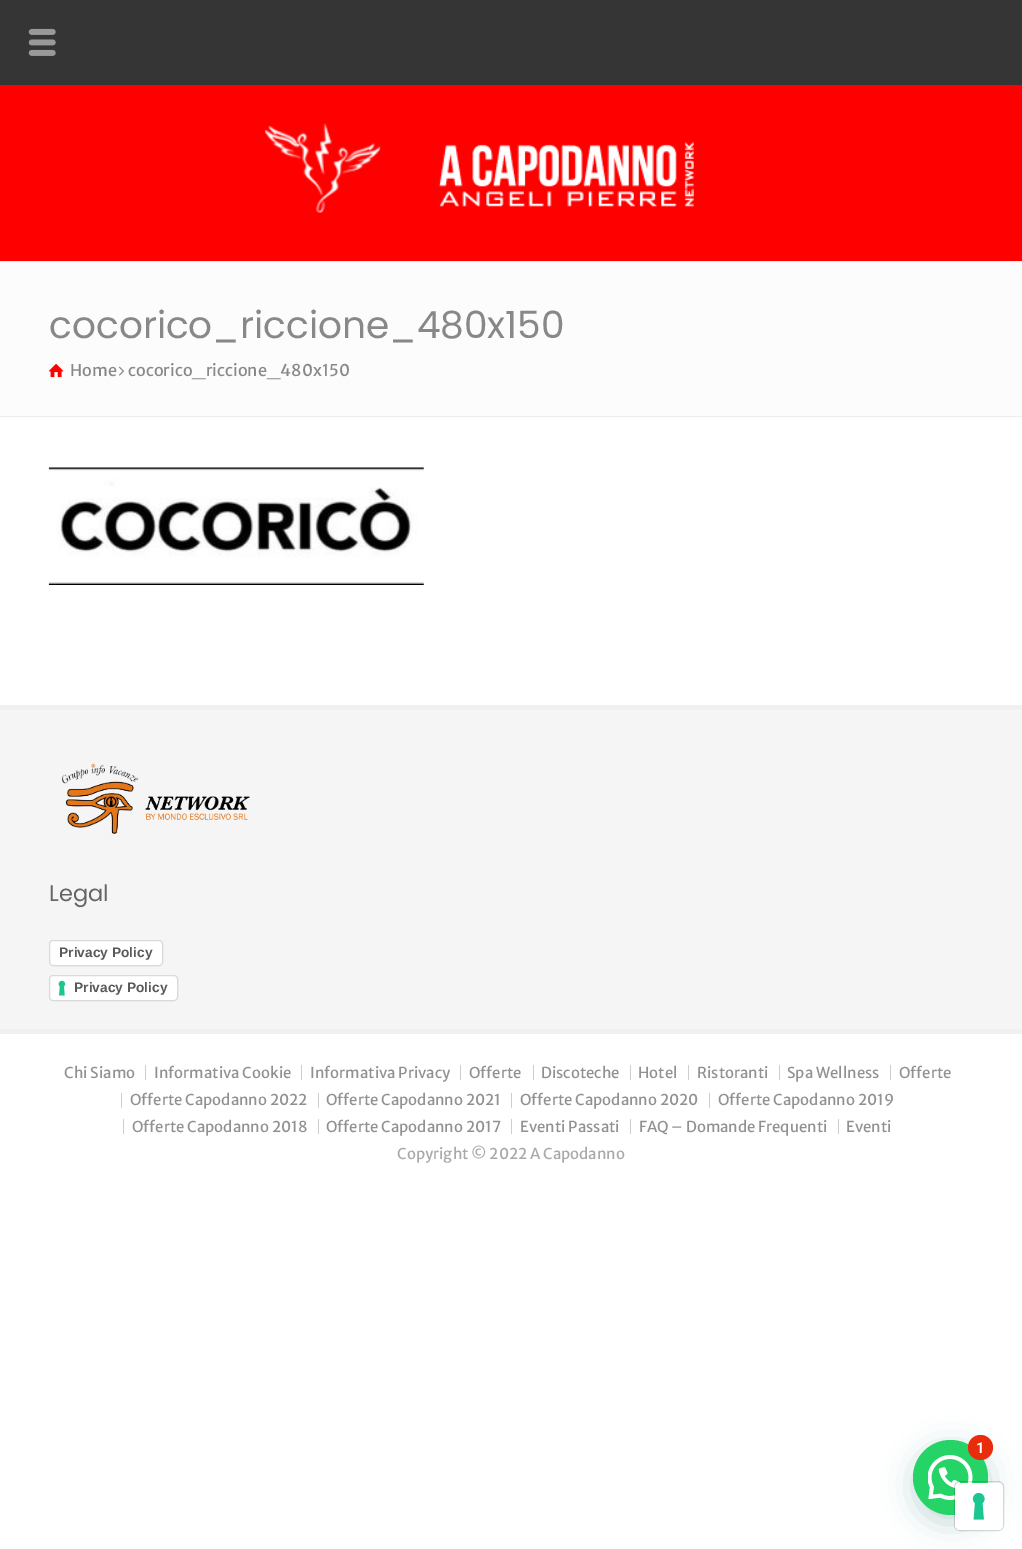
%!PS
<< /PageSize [1022 1549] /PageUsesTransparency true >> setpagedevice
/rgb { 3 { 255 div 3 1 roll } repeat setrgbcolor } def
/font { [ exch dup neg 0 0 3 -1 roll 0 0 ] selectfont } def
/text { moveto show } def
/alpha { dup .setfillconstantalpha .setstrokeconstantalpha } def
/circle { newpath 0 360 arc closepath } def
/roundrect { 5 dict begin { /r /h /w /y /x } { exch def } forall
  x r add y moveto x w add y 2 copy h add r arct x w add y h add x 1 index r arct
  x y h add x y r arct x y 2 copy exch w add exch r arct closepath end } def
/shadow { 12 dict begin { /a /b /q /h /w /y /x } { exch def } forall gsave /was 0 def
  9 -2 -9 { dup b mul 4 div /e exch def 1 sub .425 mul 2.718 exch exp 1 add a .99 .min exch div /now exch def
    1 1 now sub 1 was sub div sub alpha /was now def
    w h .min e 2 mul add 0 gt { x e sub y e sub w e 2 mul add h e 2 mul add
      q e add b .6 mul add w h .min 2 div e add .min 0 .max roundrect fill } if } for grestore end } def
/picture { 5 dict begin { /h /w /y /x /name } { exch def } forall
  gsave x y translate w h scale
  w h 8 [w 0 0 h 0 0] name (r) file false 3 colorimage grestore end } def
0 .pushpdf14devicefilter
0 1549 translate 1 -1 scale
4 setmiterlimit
255 255 255 rgb
0 0 1022 1549 rectfill
53 53 53 rgb
0 0 1022 85 rectfill
(img_01.rgb) 28 28 28 28 picture
255 0 0 rgb
0 85 1022 176 rectfill
(img_02.rgb) 264 123 430 90 picture
252 252 252 rgb
0 262 1022 156 rectfill
238 238 238 rgb
0 261 1022 1 rectfill
0 416 1022 1 rectfill
(img_03.rgb) 48 364 16 14 picture
(img_04.rgb) 118 366 7 10 picture
(img_05.rgb) 48 467 376 118 picture
245 245 245 rgb
0 710 1022 319 rectfill
240 240 240 rgb
0 705 1022 5 rectfill
(img_06.rgb) 62 763 188 71 picture
255 255 255 rgb
49 940 114 26 4 roundrect fill
0.15 alpha
0 0 0 rgb
49.5 940.5 113 25 3.5 roundrect stroke
1 alpha
255 255 255 rgb
49 975 129 26 4 roundrect fill
(img_07.rgb) 58 980 8 16 picture
0.15 alpha
0 0 0 rgb
49.5 975.5 128 25 3.5 roundrect stroke
1 alpha
240 240 240 rgb
0 1029 1022 5 rectfill
205 205 205 rgb
145 1065 1 15 rectfill
301 1065 1 15 rectfill
460 1065 1 15 rectfill
533 1065 1 15 rectfill
630 1065 1 15 rectfill
688 1065 1 15 rectfill
779 1065 1 15 rectfill
890 1065 1 15 rectfill
121 1093 1 15 rectfill
318 1093 1 15 rectfill
511 1093 1 15 rectfill
709 1093 1 15 rectfill
123 1119 1 15 rectfill
318 1119 1 15 rectfill
511 1119 1 15 rectfill
630 1119 1 15 rectfill
838 1119 1 15 rectfill
7 94 84 rgb
914 1448 75 75 37.5 15 0.24 shadow
37 211 102 rgb
950.5 1477.5 37.5 circle fill
(img_08.rgb) 928 1455 45 45 picture
232 44 12 rgb
980.5 1447.5 12.5 circle fill
0.15 alpha
0 0 0 rgb
954.5 1481.5 49 49 5.5 roundrect stroke
1 alpha
255 255 255 rgb
955 1483 48 47 5 roundrect fill
(img_09.rgb) 972 1492 13 28 picture
/Poppins-Regular 37.5 font
136 136 136 rgb
(cocorico_riccione_480x150) 49 338 text
/MerriweatherSans-Regular 16.25 font
(Home) 70 376 text
(cocorico_riccione_480x150) 128 376 text
/Poppins-Regular 22.5 font
102 102 102 rgb
(Legal) 49 901 text
/LiberationSans-Bold 13.75 font
89 89 89 rgb
(Privacy Policy) 59 957 text
(Privacy Policy) 74 992 text
/MerriweatherSans-Regular 15 font
145 145 145 rgb
(Chi Siamo) 64 1078 text
(Informativa Cookie) 154 1078 text
(Informativa Privacy) 310 1078 text
(Offerte) 469 1078 text
(Discoteche) 541 1078 text
(Hotel) 638 1078 text
(Ristoranti) 697 1078 text
(Spa Wellness) 787 1078 text
(Offerte) 899 1078 text
(Offerte Capodanno 2022) 130 1105 text
(Offerte Capodanno 2021) 326 1105 text
(Offerte Capodanno 2020) 520 1105 text
(Offerte Capodanno 2019) 718 1105 text
(Offerte Capodanno 2018) 132 1132 text
(Offerte Capodanno 2017) 326 1132 text
(Eventi Passati) 520 1132 text
(FAQ – Domande Frequenti) 639 1132 text
(Eventi) 846 1132 text
169 169 169 rgb
(Copyright © 2022 A Capodanno) 397 1159 text
/Roboto-SemiBold 15 font
255 255 255 rgb
(1) 976 1453 text
.poppdf14devicefilter showpage
